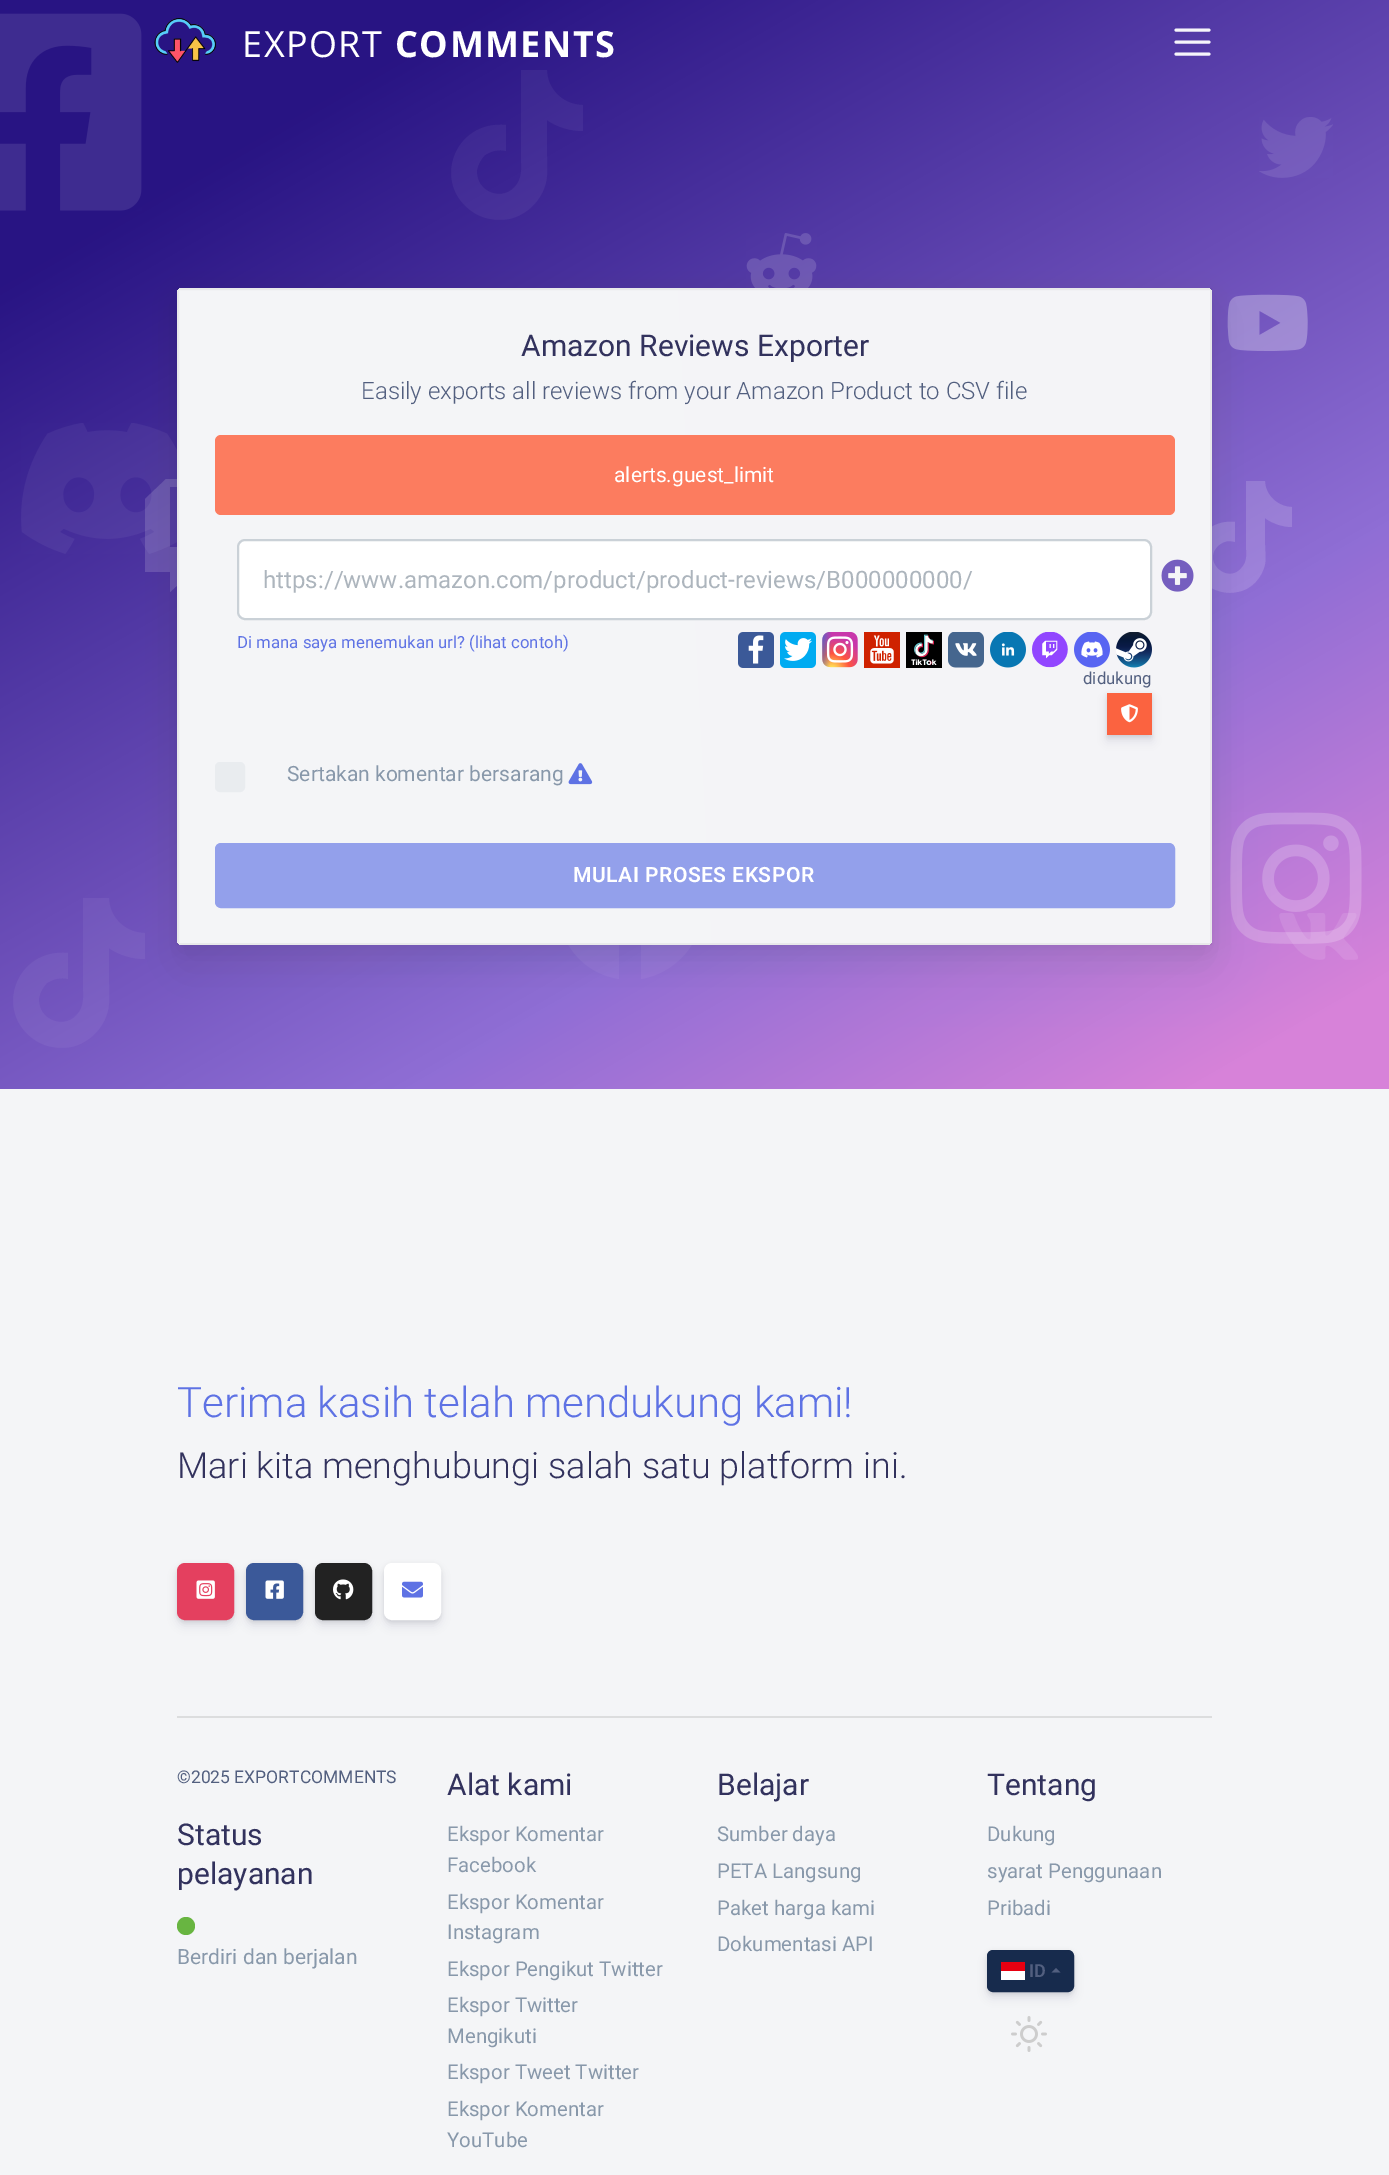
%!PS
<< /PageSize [1389 2175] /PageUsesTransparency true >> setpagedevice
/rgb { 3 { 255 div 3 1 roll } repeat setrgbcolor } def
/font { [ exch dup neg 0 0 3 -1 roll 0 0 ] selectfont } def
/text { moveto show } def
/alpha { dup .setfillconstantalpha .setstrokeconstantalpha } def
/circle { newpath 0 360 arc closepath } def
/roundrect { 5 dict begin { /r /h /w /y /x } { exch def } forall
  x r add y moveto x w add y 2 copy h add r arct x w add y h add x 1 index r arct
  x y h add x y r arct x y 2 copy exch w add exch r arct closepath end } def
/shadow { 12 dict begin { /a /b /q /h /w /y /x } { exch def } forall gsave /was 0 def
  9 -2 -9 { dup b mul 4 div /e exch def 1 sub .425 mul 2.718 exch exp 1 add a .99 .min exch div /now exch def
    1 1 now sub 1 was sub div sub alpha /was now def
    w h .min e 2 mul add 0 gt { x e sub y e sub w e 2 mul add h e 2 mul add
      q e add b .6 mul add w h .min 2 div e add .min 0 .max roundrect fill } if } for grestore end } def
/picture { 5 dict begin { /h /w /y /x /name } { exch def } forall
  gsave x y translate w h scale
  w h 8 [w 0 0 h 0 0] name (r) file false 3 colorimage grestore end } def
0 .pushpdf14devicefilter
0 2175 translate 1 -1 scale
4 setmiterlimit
255 255 255 rgb
0 0 1389 2175 rectfill
gsave 0 0 moveto 1389 0 rlineto 0 1089 rlineto -1389 0 rlineto closepath clip newpath
<< /ShadingType 2 /ColorSpace /DeviceRGB /Coords [285 -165 1104 1254] /Extend [true true] /Function << /FunctionType 3 /Domain [0 1] /Functions [<< /FunctionType 2 /Domain [0 1] /C0 [0.157 0.078 0.514] /C1 [0.157 0.078 0.514] /N 1 >> << /FunctionType 2 /Domain [0 1] /C0 [0.157 0.078 0.514] /C1 [0.561 0.431 0.835] /N 1 >> << /FunctionType 2 /Domain [0 1] /C0 [0.561 0.431 0.835] /C1 [0.843 0.51 0.851] /N 1 >> << /FunctionType 2 /Domain [0 1] /C0 [0.843 0.51 0.851] /C1 [0.843 0.51 0.851] /N 1 >>] /Bounds [0.15 0.7 0.94] /Encode [0 1 0 1 0 1 0 1] >> >> shfill grestore
(img_01.rgb) 154 18 62 45 picture
0.95 alpha
3 setlinewidth
1 setlinecap
1176 30 moveto 33 0 rlineto 1176 42 moveto 33 0 rlineto 1176 54 moveto 33 0 rlineto stroke
1 alpha
(img_02.rgb) 0 13 142 198 picture
0.05 alpha
583 131 moveto -13 0 -26 -4 -36 -11 rcurveto 0 35 rlineto 0 9 1 18 -1 27 rcurveto -4 18 -19 33 -37 37 rcurveto -13 2 -26 0 -36 -7 rcurveto -42 -28 -19 -92 33 -87 rcurveto 0 26 rlineto -7 -2 -15 0 -21 4 rcurveto -4 4 -7 9 -8 15 rcurveto -2 23 28 33 40 14 rcurveto 6 -8 4 -20 4 -29 rcurveto 0 -85 rlineto 26 0 rlineto 0 19 16 35 36 35 rcurveto closepath fill
1 alpha
(img_03.rgb) 1259 117 74 61 picture
(img_04.rgb) 746 233 71 55 picture
(img_05.rgb) 1227 294 81 57 picture
(img_06.rgb) 21 423 156 131 picture
0.15 alpha
225 502 moveto 0 24 rlineto -8 0 rlineto 0 -24 rlineto closepath 202 502 moveto 0 24 rlineto -8 0 rlineto 0 -24 rlineto closepath 166 479 moveto 81 0 rlineto 0 56 rlineto -39 37 rlineto -16 0 rlineto -22 20 rlineto 0 -20 rlineto -25 0 rlineto 0 -73 rlineto closepath 238 531 moveto 0 -44 rlineto -68 0 rlineto 0 60 rlineto 19 0 rlineto 0 14 rlineto 15 -14 rlineto 17 0 rlineto closepath fill
1292 527 moveto -9 0 -19 -3 -27 -9 rcurveto 0 26 rlineto 0 7 1 14 0 20 rcurveto -3 14 -14 26 -28 28 rcurveto -9 2 -19 0 -27 -5 rcurveto -32 -21 -13 -69 25 -65 rcurveto 0 20 rlineto -6 -2 -11 -1 -16 3 rcurveto -19 16 10 42 24 21 rcurveto 5 -6 3 -15 3 -22 rcurveto 0 -63 rlineto 19 0 rlineto 0 14 13 26 27 26 rcurveto closepath fill
0.05 alpha
145 959 moveto -13 0 -26 -4 -36 -11 rcurveto 0 35 rlineto 0 9 1 18 -1 27 rcurveto -4 18 -19 33 -37 37 rcurveto -13 2 -26 0 -36 -7 rcurveto -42 -28 -19 -92 33 -87 rcurveto 0 26 rlineto -7 -2 -15 0 -21 4 rcurveto -4 4 -7 9 -8 15 rcurveto -2 23 28 33 40 14 rcurveto 6 -8 4 -20 4 -29 rcurveto 0 -85 rlineto 26 0 rlineto 0 19 16 35 36 35 rcurveto closepath fill
703 907 moveto 0 35 -27 66 -62 72 rcurveto 0 -51 rlineto 17 0 rlineto 4 -21 rlineto -21 0 rlineto 0 -9 -2 -23 9 -25 rcurveto 12 0 rlineto 0 -18 rlineto -18 -3 -39 -2 -43 20 rcurveto 0 23 rlineto -19 0 rlineto 0 21 rlineto 19 0 rlineto 0 51 rlineto -62 -10 -83 -89 -35 -129 rcurveto 11 -9 24 -14 39 -16 rcurveto 16 -1 33 3 47 12 rcurveto 21 14 33 36 33 61 rcurveto closepath fill
1 alpha
(img_07.rgb) 1230 812 132 132 picture
(img_08.rgb) 1279 913 79 47 picture
0 0 0 rgb
177 296 1035 657 6 11 0.07 shadow
50 50 93 rgb
177 311 1035 657 6 26 0.1 shadow
gsave
177 288 1035 657 6 roundrect clip newpath
gsave 177 289 moveto 2 0 rlineto 0 1 rlineto -2 0 rlineto closepath clip newpath
<< /ShadingType 2 /ColorSpace /DeviceRGB /Coords [-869 -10 194 -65] /Extend [true true] /Function << /FunctionType 2 /Domain [0 1] /C0 [0.957 0.961 0.969] /C1 [0.957 0.957 0.969] /N 1 >> >> shfill grestore
gsave 179 288 moveto 1032 0 rlineto 0 2 rlineto -1032 0 rlineto closepath clip newpath
<< /ShadingType 2 /ColorSpace /DeviceRGB /Coords [163 -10 1226 -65] /Extend [true true] /Function << /FunctionType 2 /Domain [0 1] /C0 [0.957 0.961 0.969] /C1 [0.957 0.957 0.969] /N 1 >> >> shfill grestore
gsave 177 290 moveto 2 0 rlineto 0 654 rlineto -2 0 rlineto closepath clip newpath
<< /ShadingType 2 /ColorSpace /DeviceRGB /Coords [-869 644 194 589] /Extend [true true] /Function << /FunctionType 2 /Domain [0 1] /C0 [0.957 0.961 0.969] /C1 [0.957 0.957 0.969] /N 1 >> >> shfill grestore
gsave 179 290 moveto 1032 0 rlineto 0 654 rlineto -1032 0 rlineto closepath clip newpath
<< /ShadingType 2 /ColorSpace /DeviceRGB /Coords [163 644 1226 589] /Extend [true true] /Function << /FunctionType 2 /Domain [0 1] /C0 [0.957 0.961 0.969] /C1 [0.957 0.957 0.969] /N 1 >> >> shfill grestore
gsave 1211 290 moveto 1 0 rlineto 0 654 rlineto -1 0 rlineto closepath clip newpath
<< /ShadingType 2 /ColorSpace /DeviceRGB /Coords [1195 644 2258 589] /Extend [true true] /Function << /FunctionType 2 /Domain [0 1] /C0 [0.957 0.961 0.969] /C1 [0.957 0.957 0.969] /N 1 >> >> shfill grestore
gsave 179 944 moveto 1032 0 rlineto 0 1 rlineto -1032 0 rlineto closepath clip newpath
<< /ShadingType 2 /ColorSpace /DeviceRGB /Coords [163 1298 1226 1243] /Extend [true true] /Function << /FunctionType 2 /Domain [0 1] /C0 [0.957 0.961 0.969] /C1 [0.957 0.957 0.969] /N 1 >> >> shfill grestore
grestore
0.05 alpha
0 0 0 rgb
2 setlinewidth
0 setlinecap
178 289 1033 655 rectstroke
1 alpha
252 124 95 rgb
215 435 960 80 6 roundrect fill
255 255 255 rgb
238 540 913 79 7 roundrect gsave fill grestore
202 209 215 rgb
stroke
(img_09.rgb) 1161 559 33 33 picture
(img_10.rgb) 738 632 36 36 picture
(img_11.rgb) 780 632 36 36 picture
(img_12.rgb) 822 632 36 36 picture
(img_13.rgb) 864 632 36 36 picture
(img_14.rgb) 906 632 36 36 picture
(img_15.rgb) 948 632 36 36 picture
(img_16.rgb) 990 632 36 36 picture
(img_17.rgb) 1032 632 36 36 picture
(img_18.rgb) 1074 632 36 36 picture
(img_19.rgb) 1116 632 36 36 picture
0 0 0 rgb
1107 695 45 42 0 2 0.08 shadow
50 50 93 rgb
1107 699 45 42 0 4.5 0.11 shadow
251 99 64 rgb
1107 693 45 42 rectfill
(img_20.rgb) 1121 704 17 19 picture
233 236 239 rgb
216 763 28 28 4 roundrect gsave fill grestore
stroke
(img_21.rgb) 568 763 25 22 picture
147 160 235 rgb
216 844 958 63 5 roundrect gsave fill grestore
stroke
244 245 247 rgb
0 1089 1389 1086 rectfill
0 0 0 rgb
177 1565 57 57 8 2 0.08 shadow
50 50 93 rgb
177 1569 57 57 8 4.5 0.11 shadow
228 64 95 rgb
178 1564 55 55 7 roundrect gsave fill grestore
stroke
(img_22.rgb) 196 1580 19 19 picture
0 0 0 rgb
246 1565 57 57 8 2 0.08 shadow
50 50 93 rgb
246 1569 57 57 8 4.5 0.11 shadow
59 89 153 rgb
247 1564 55 55 7 roundrect gsave fill grestore
stroke
(img_23.rgb) 265 1580 19 19 picture
0 0 0 rgb
315 1565 57 57 8 2 0.08 shadow
50 50 93 rgb
315 1569 57 57 8 4.5 0.11 shadow
34 34 34 rgb
316 1564 55 55 7 roundrect gsave fill grestore
stroke
(img_24.rgb) 333 1579 21 21 picture
0 0 0 rgb
384 1565 57 57 8 2 0.08 shadow
50 50 93 rgb
384 1569 57 57 8 4.5 0.11 shadow
255 255 255 rgb
385 1564 55 55 7 roundrect gsave fill grestore
stroke
(img_25.rgb) 402 1581 21 17 picture
220 221 222 rgb
177 1716 1035 2 rectfill
104 181 65 rgb
186 1926 9 circle fill
0 0 0 rgb
987 1952 87 42 6 2 0.08 shadow
50 50 93 rgb
987 1956 87 42 6 4.5 0.11 shadow
23 43 77 rgb
988 1951 85 40 5 roundrect gsave fill grestore
stroke
231 0 17 rgb
1001 1962 24 9 rectfill
255 255 255 rgb
1001 1971 24 9 rectfill
82 95 127 rgb
1060.5 1972.5 moveto -9 0 rlineto 4.5 -4.5 rlineto closepath fill
(img_26.rgb) 1011 2016 36 36 picture
/OpenSans-Regular 36 font
255 255 255 rgb
242 57 moveto 1.5 0 (EXPORT) ashow
/OpenSans-Bold 36 font
395 57 moveto 1.5 0 (COMMENTS) ashow
/Roboto-Regular 30 font
50 50 93 rgb
(Amazon Reviews Exporter) 521 356 text
/Roboto-Light 24 font
82 95 127 rgb
(Easily exports all reviews from your Amazon Product to CSV file) 361 399 text
/Roboto-Regular 21 font
255 255 255 rgb
(alerts.guest_limit) 614 482 text
/Roboto-Regular 24 font
173 181 189 rgb
(https://www.amazon.com/product/product-reviews/B000000000/) 263 588 text
/Roboto-Regular 16.75 font
94 114 228 rgb
(Di mana saya menemukan url? \(lihat contoh\)) 237 648 text
82 95 127 rgb
(didukung) 1083 684 text
/Roboto-Regular 21 font
136 152 170 rgb
(Sertakan komentar bersarang) 287 781 text
/Roboto-SemiBold 21 font
255 255 255 rgb
573 882 moveto 0.5 0 (MULAI PROSES EKSPOR) ashow
/Roboto-Light 42 font
94 114 228 rgb
(Terima kasih telah mendukung kami!) 177 1417 text
/Roboto-Light 36 font
50 50 93 rgb
(Mari kita menghubungi salah satu platform ini.) 177 1478 text
/Roboto-Regular 17.5 font
82 95 127 rgb
(©2025 EXPORTCOMMENTS) 177 1783 text
/Roboto-Regular 30 font
50 50 93 rgb
(Status) 177 1845 text
(pelayanan) 177 1884 text
/Roboto-Regular 21 font
136 152 170 rgb
(Berdiri dan berjalan) 177 1964 text
/Roboto-Regular 30 font
50 50 93 rgb
(Alat kami) 447 1795 text
/Roboto-Regular 20.4 font
136 152 170 rgb
(Ekspor Komentar) 447 1841 text
(Facebook) 447 1872 text
(Ekspor Komentar) 447 1909 text
(Instagram) 447 1939 text
(Ekspor Pengikut Twitter) 447 1976 text
(Ekspor Twitter) 447 2012 text
(Mengikuti) 447 2043 text
(Ekspor Tweet Twitter) 447 2079 text
(Ekspor Komentar) 447 2116 text
(YouTube) 447 2147 text
/Roboto-Regular 30 font
50 50 93 rgb
(Belajar) 717 1795 text
/Roboto-Regular 20.4 font
136 152 170 rgb
(Sumber daya) 717 1841 text
(PETA Langsung) 717 1878 text
(Paket harga kami) 717 1915 text
(Dokumentasi API) 717 1951 text
/Roboto-Regular 30 font
50 50 93 rgb
(Tentang) 987 1795 text
/Roboto-Regular 20.4 font
136 152 170 rgb
(Dukung) 987 1841 text
(syarat Penggunaan) 987 1878 text
(Pribadi) 987 1915 text
/Roboto-SemiBold 18 font
82 95 127 rgb
(ID) 1029 1977 text
.poppdf14devicefilter showpage
